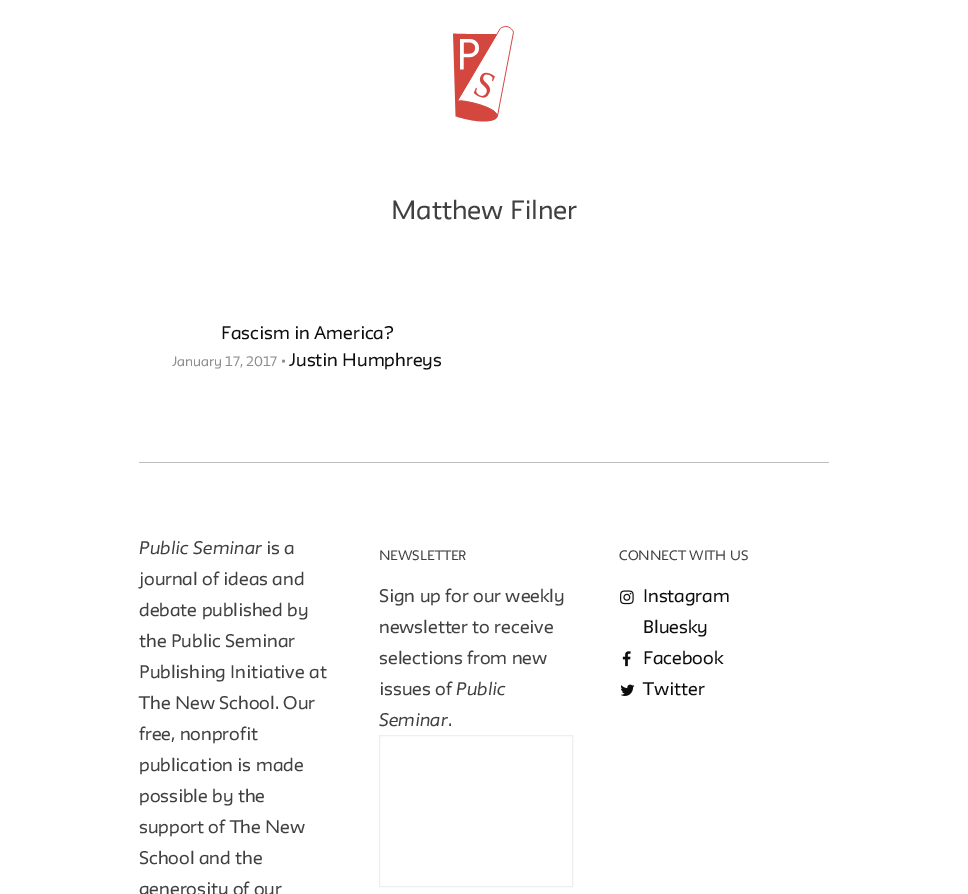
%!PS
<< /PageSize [968 894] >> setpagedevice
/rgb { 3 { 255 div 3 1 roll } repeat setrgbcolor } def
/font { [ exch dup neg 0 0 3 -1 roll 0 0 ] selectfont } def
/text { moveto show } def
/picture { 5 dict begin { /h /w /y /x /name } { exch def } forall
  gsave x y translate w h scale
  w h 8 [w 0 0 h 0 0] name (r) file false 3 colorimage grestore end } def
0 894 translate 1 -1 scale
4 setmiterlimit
255 255 255 rgb
0 0 968 894 rectfill
(img_01.rgb) 453 26 62 96 picture
190 190 190 rgb
139 462 690 1 rectfill
238 238 238 rgb
379.5 735.5 193 151 rectstroke
(img_02.rgb) 620 590 14 15 picture
(img_03.rgb) 622 651 9 16 picture
(img_04.rgb) 620 684 15 12 picture
/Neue-Regular 23.25 font
64 64 64 rgb
(Matthew Filner) 391 219 text
/Neue-Regular 16 font
13 13 13 rgb
(Fascism in America?) 221 339 text
/Neue-Regular 12 font
142 142 142 rgb
(January 17, 2017 •) 172 366 text
/Neue-Regular 16 font
13 13 13 rgb
(Justin Humphreys) 289 366 text
/Neue-Italic 16 font
64 64 64 rgb
(Public Seminar) 139 554 text
/Neue-Regular 16 font
(is a) 266 554 text
(journal of ideas and) 139 585 text
(debate published by) 139 616 text
(the Public Seminar) 139 647 text
(Publishing Initiative at) 139 678 text
(The New School. Our) 139 709 text
(free, nonprofit) 139 740 text
(publication is made) 139 771 text
(possible by the) 139 802 text
(support of The New) 139 833 text
(School and the) 139 864 text
(generosity of our) 139 895 text
/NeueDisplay-Regular 12 font
(NEWSLETTER) 379 560 text
/Neue-Regular 16 font
(Sign up for our weekly) 379 602 text
(newsletter to receive) 379 633 text
(selections from new) 379 664 text
(issues of) 379 695 text
/Neue-Italic 16 font
(Public) 456 695 text
(Seminar) 379 726 text
/Neue-Regular 16 font
(.) 448 726 text
/NeueDisplay-Regular 12 font
(CONNECT WITH US) 619 560 text
/Neue-Regular 16 font
13 13 13 rgb
(Instagram) 643 602 text
(Bluesky) 643 633 text
(Facebook) 643 664 text
(Twitter) 643 695 text
showpage
